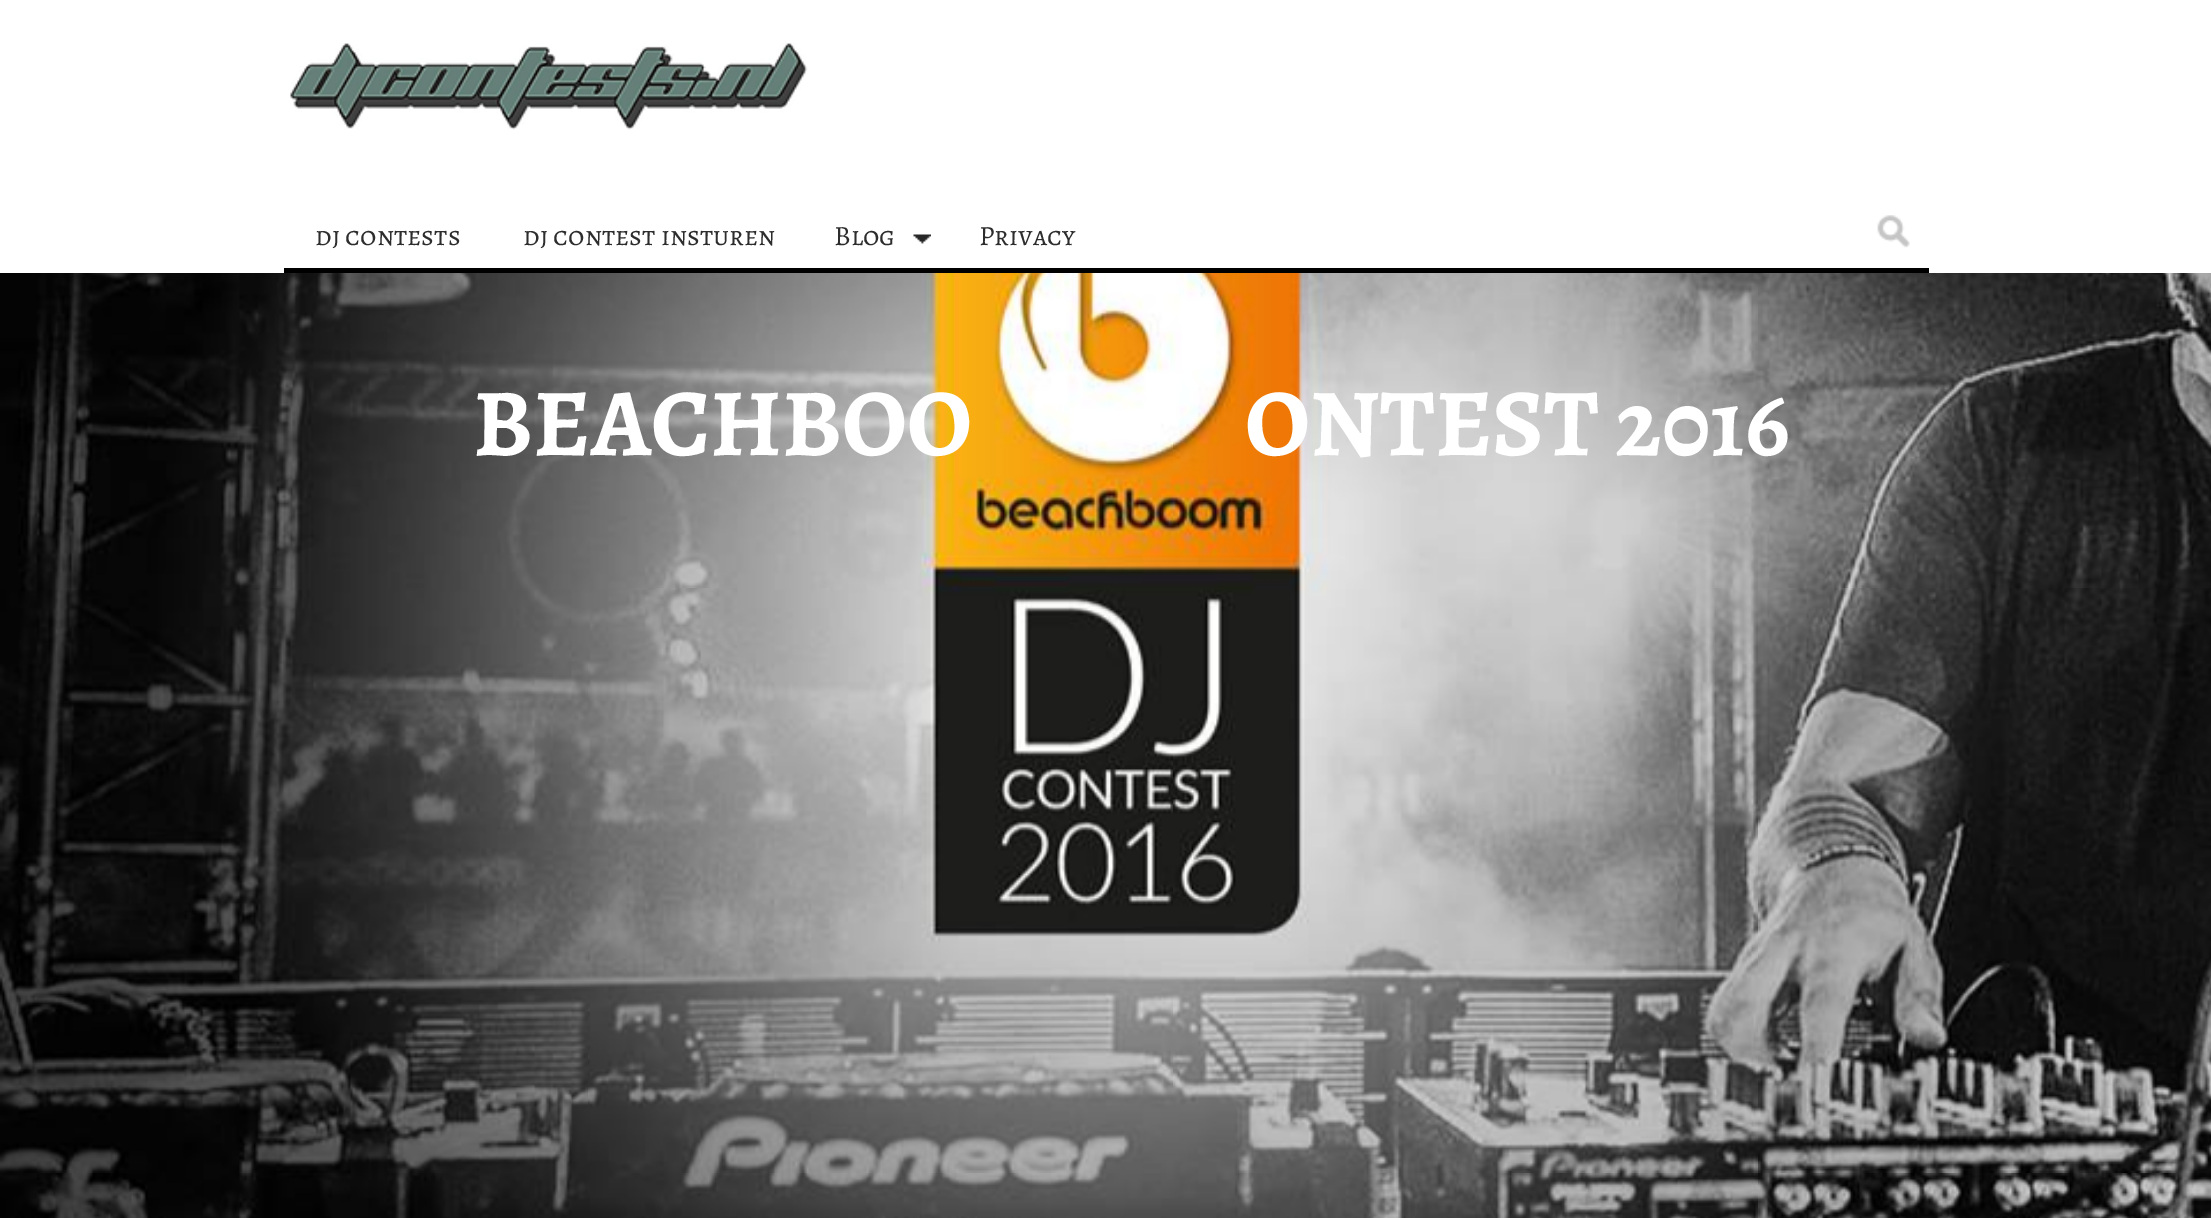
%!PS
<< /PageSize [2211 1218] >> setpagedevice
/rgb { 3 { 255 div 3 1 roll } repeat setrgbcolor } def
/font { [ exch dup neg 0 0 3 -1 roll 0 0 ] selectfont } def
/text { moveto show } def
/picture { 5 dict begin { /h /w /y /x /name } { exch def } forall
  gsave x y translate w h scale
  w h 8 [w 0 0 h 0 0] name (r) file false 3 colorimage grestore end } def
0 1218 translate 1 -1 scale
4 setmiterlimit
255 255 255 rgb
0 0 2211 1218 rectfill
(img_01.rgb) 290 43 518 87 picture
0 0 0 rgb
284 268 1645 5 rectfill
(img_02.rgb) 913 234 18 10 picture
(img_03.rgb) 1877 215 33 33 picture
(img_04.rgb) 0 273 2211 945 picture
/AlegreyaSC-Regular 28 font
45 45 45 rgb
(dj contests) 315 245 text
(dj contest insturen) 523 245 text
(Blog) 834 245 text
(Privacy) 979 245 text
/AlegreyaSC-Bold 96.25 font
255 255 255 rgb
(BEACHBOO) 473 455 text
(ONTEST 2016) 1245 455 text
showpage
